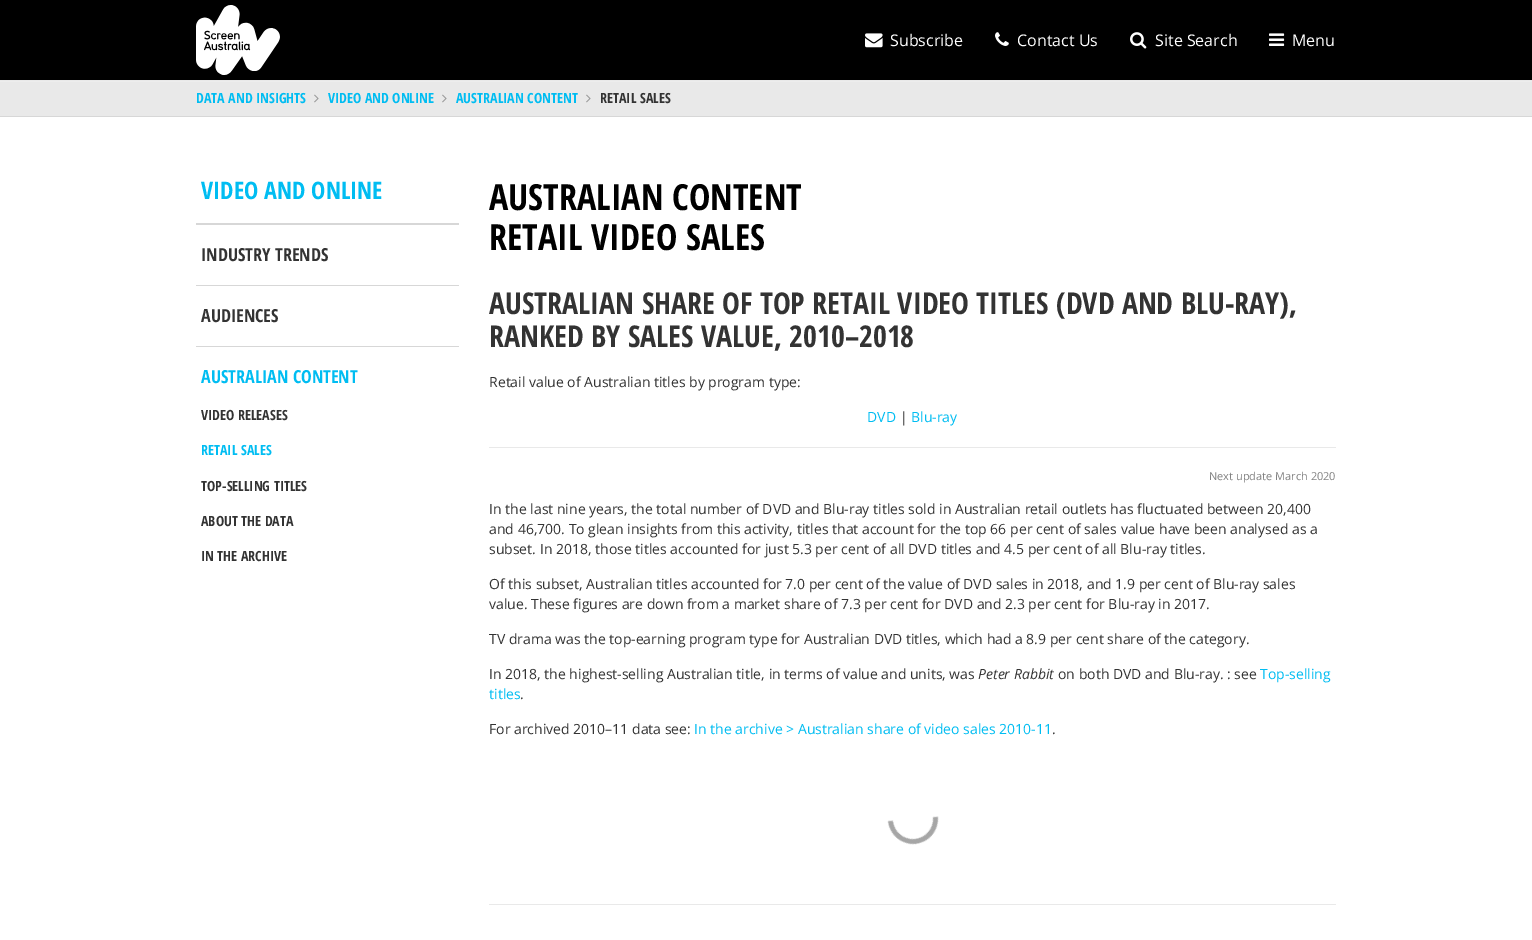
%!PS
<< /PageSize [1532 940] >> setpagedevice
/rgb { 3 { 255 div 3 1 roll } repeat setrgbcolor } def
/font { [ exch dup neg 0 0 3 -1 roll 0 0 ] selectfont } def
/text { moveto show } def
/picture { 5 dict begin { /h /w /y /x /name } { exch def } forall
  gsave x y translate w h scale
  w h 8 [w 0 0 h 0 0] name (r) file false 3 colorimage grestore end } def
0 940 translate 1 -1 scale
4 setmiterlimit
0 0 0 rgb
0 0 1532 940 rectfill
233 233 233 rgb
0 80 1532 36 rectfill
237 237 237 rgb
0 81 1532 1 rectfill
(img_01.rgb) 196 5 84 70 picture
(img_02.rgb) 865 33 18 15 picture
(img_03.rgb) 995 32 14 14 picture
(img_04.rgb) 1130 32 17 17 picture
(img_05.rgb) 1269 33 16 13 picture
215 215 215 rgb
0 116 1532 1 rectfill
(img_06.rgb) 314 94 5 9 picture
(img_06.rgb) 442 94 5 9 picture
(img_06.rgb) 586 94 5 9 picture
255 255 255 rgb
0 117 1532 823 rectfill
215 215 215 rgb
196 223 263 2 rectfill
196 285 263 1 rectfill
196 346 263 1 rectfill
233 233 233 rgb
489 447 847 1 rectfill
(img_07.rgb) 887 816 52 29 picture
489 904 847 1 rectfill
/OpenSans-Regular 16 font
255 255 255 rgb
(Subscribe) 890 46 text
(Contact Us) 1017 46 text
(Site Search) 1155 46 text
(Menu) 1292 46 text
/OpenSansCondensed-Bold 14 font
0 189 242 rgb
(DATA AND INSIGHTS) 196 103 text
(VIDEO AND ONLINE) 328 103 text
(AUSTRALIAN CONTENT) 456 103 text
51 51 51 rgb
(RETAIL SALES) 600 103 text
/OpenSansCondensed-Bold 24 font
0 189 242 rgb
(VIDEO AND ONLINE) 201 199 text
/OpenSansCondensed-Bold 18 font
51 51 51 rgb
(INDUSTRY TRENDS) 201 261 text
(AUDIENCES) 201 322 text
0 189 242 rgb
(AUSTRALIAN CONTENT) 201 383 text
/OpenSansCondensed-Bold 14 font
51 51 51 rgb
(VIDEO RELEASES) 201 420 text
0 189 242 rgb
(RETAIL SALES) 201 455 text
51 51 51 rgb
(TOP-SELLING TITLES) 201 491 text
(ABOUT THE DATA) 201 526 text
(IN THE ARCHIVE) 201 561 text
/OpenSansCondensed-Bold 36 font
0 0 0 rgb
(AUSTRALIAN CONTENT) 489 210 text
(RETAIL VIDEO SALES) 489 250 text
/OpenSansCondensed-Bold 30 font
51 51 51 rgb
(AUSTRALIAN SHARE OF TOP RETAIL VIDEO TITLES \(DVD AND BLU-RAY\),) 489 314 text
(RANKED BY SALES VALUE, 2010–2018) 489 347 text
/OpenSans-Regular 14 font
(Retail value of Australian titles by program type:) 489 387 text
0 189 242 rgb
(DVD) 867 422 text
51 51 51 rgb
(|) 900 422 text
0 189 242 rgb
(Blu-ray) 911 422 text
/OpenSans-Regular 11 font
130 130 130 rgb
(Next update March 2020) 1209 480 text
/OpenSans-Regular 14 font
51 51 51 rgb
(In the last nine years, the total number of DVD and Blu-ray titles sold in Australian retail outlets has fluctuated between 20,400) 489 514 text
(and 46,700. To glean insights from this activity, titles that account for the top 66 per cent of sales value have been analysed as a) 489 534 text
(subset. In 2018, those titles accounted for just 5.3 per cent of all DVD titles and 4.5 per cent of all Blu-ray titles.) 489 554 text
(Of this subset, Australian titles accounted for 7.0 per cent of the value of DVD sales in 2018, and 1.9 per cent of Blu-ray sales) 489 589 text
(value. These figures are down from a market share of 7.3 per cent for DVD and 2.3 per cent for Blu-ray in 2017.) 489 609 text
(TV drama was the top-earning program type for Australian DVD titles, which had a 8.9 per cent share of the category.) 489 644 text
(In 2018, the highest-selling Australian title, in terms of value and units, was) 489 679 text
/OpenSans-Italic 14 font
(Peter Rabbit) 978 679 text
/OpenSans-Regular 14 font
(on both DVD and Blu-ray. : see) 1058 679 text
0 189 242 rgb
(Top-selling) 1260 679 text
(titles) 489 699 text
51 51 51 rgb
(.) 520 699 text
(For archived 2010–11 data see:) 489 734 text
0 189 242 rgb
(In the archive > Australian share of video sales 2010-11) 694 734 text
51 51 51 rgb
(.) 1052 734 text
showpage
